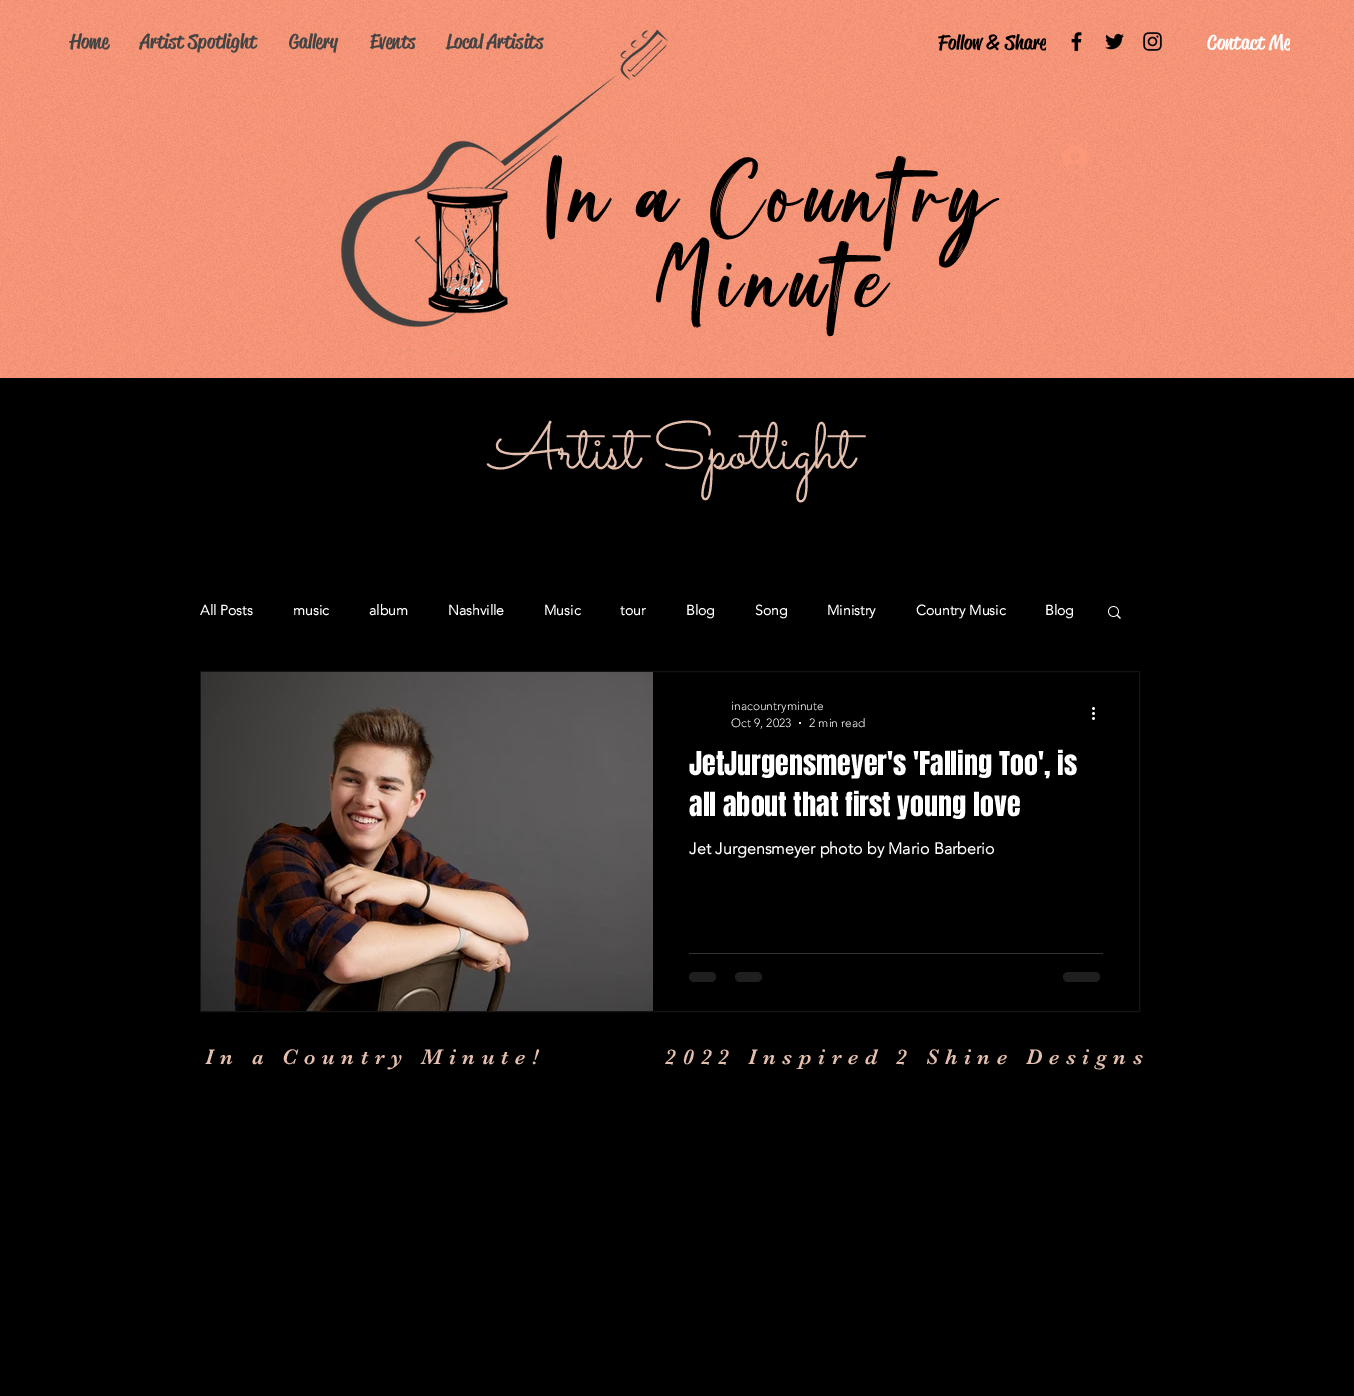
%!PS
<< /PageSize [1354 1396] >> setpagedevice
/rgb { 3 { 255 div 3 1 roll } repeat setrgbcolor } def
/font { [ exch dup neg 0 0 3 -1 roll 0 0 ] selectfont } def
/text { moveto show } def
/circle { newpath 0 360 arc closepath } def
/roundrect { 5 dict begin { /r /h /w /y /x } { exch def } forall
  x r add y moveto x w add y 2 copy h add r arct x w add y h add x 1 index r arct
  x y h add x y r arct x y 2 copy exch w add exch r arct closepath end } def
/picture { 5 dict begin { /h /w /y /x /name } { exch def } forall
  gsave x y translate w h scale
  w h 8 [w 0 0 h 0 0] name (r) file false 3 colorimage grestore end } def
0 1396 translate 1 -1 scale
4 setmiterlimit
0 0 0 rgb
0 0 1354 1396 rectfill
252 151 121 rgb
0 0 1354 378 rectfill
(img_01.rgb) 0 0 1354 378 picture
(img_03.rgb) 1071 32 11 20 picture
(img_04.rgb) 1105 33 19 17 picture
(img_05.rgb) 1143 32 19 19 picture
(img_06.rgb) 1062 145 26 26 picture
(img_07.rgb) 1108 606 13 13 picture
20 20 20 rgb
200.5 671.5 939 340 rectstroke
(img_08.rgb) 201 672 452 339 picture
255 255 255 rgb
800 723 1 circle fill
(img_09.rgb) 1092 707 3 13 picture
51 51 51 rgb
689 953 414 1 rectfill
31 31 31 rgb
689 972 27 10 5 roundrect fill
735 972 27 10 5 roundrect fill
1063 972 37 10 5 roundrect fill
/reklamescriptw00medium-Medium 20 font
68 68 68 rgb
(Home) 70 48 text
(Artist Spotlight) 140 48 text
(Gallery) 289 48 text
gsave
938 27 108 31 rectclip
0 0 0 rgb
(Follow & Share) 938 49 text
grestore
gsave
1207 27 83 31 rectclip
255 255 255 rgb
(Contact Me) 1207 49 text
grestore
/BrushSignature-Regular 78 font
0 0 0 rgb
546 222 moveto 5.5 0 (In a Country) ashow
655 307 moveto 5.5 0 (Minute) ashow
(img_02.rgb) 340 28 329 300 picture
/reklamescriptw00medium-Medium 20 font
68 68 68 rgb
(Local Artisits) 446 48 text
(Events) 370 48 text
/Sacramento-Regular 65 font
228 191 173 rgb
(Artist Spotlight) 490 468 text
/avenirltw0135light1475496-Bold 14 font
255 255 255 rgb
(All Posts) 200 615 text
(music) 293 615 text
(album) 369 615 text
(Nashville) 448 615 text
(Music) 544 615 text
(tour) 620 615 text
(Blog) 686 615 text
(Song) 755 615 text
(Ministry) 827 615 text
(Country Music) 916 615 text
(Blog) 1045 615 text
/avenirltw0135light1475496-Light 12 font
(inacountryminute) 731 710 text
(Oct 9, 2023) 731 727 text
(2 min read) 809 727 text
/Anton-Regular 28 font
(JetJurgensmeyer's 'Falling Too', is) 689 775 text
(all about that first young love) 689 816 text
/avenirltw0135light1475496-Bold 16 font
(Jet Jurgensmeyer photo by Mario Barberio) 689 854 text
/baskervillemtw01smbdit-Regular 22 font
228 191 173 rgb
205 1064 moveto 6.6 0 (In a Country Minute!          2022 Inspired 2 Shine Designs) ashow
showpage
